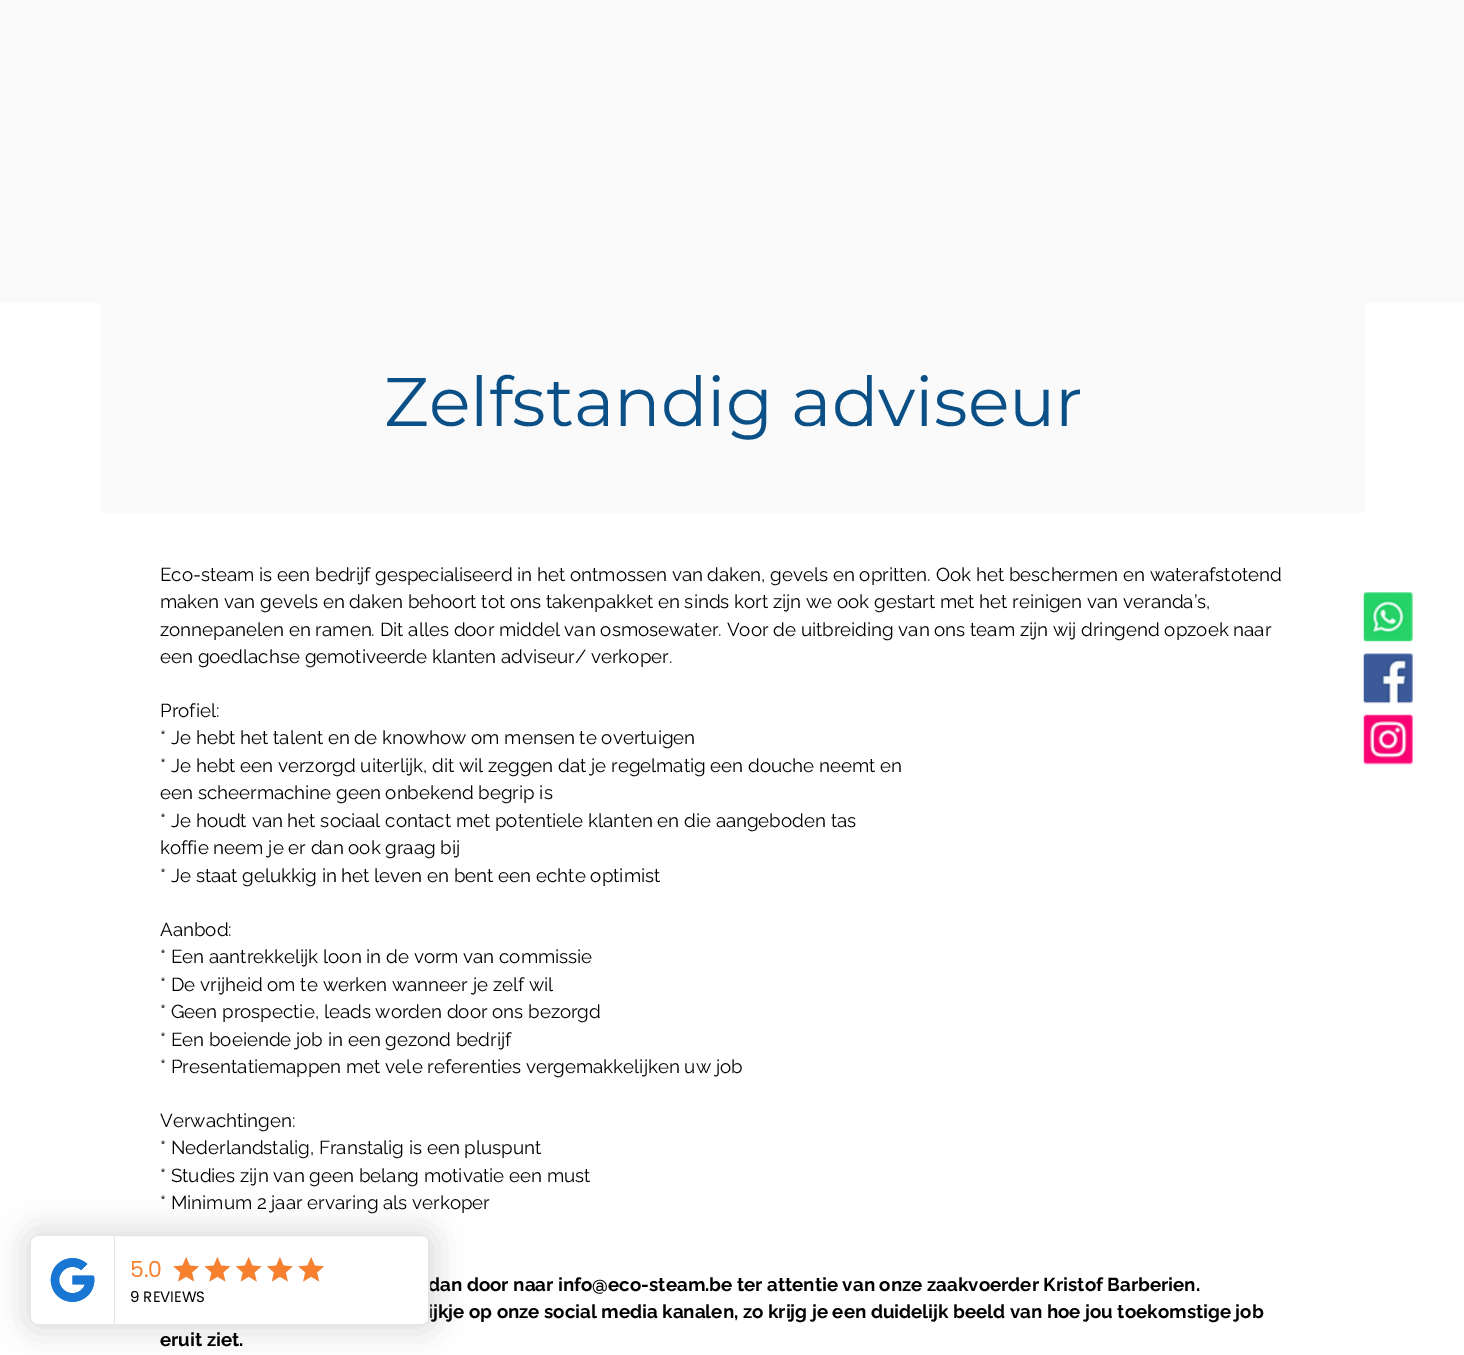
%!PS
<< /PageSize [1464 1355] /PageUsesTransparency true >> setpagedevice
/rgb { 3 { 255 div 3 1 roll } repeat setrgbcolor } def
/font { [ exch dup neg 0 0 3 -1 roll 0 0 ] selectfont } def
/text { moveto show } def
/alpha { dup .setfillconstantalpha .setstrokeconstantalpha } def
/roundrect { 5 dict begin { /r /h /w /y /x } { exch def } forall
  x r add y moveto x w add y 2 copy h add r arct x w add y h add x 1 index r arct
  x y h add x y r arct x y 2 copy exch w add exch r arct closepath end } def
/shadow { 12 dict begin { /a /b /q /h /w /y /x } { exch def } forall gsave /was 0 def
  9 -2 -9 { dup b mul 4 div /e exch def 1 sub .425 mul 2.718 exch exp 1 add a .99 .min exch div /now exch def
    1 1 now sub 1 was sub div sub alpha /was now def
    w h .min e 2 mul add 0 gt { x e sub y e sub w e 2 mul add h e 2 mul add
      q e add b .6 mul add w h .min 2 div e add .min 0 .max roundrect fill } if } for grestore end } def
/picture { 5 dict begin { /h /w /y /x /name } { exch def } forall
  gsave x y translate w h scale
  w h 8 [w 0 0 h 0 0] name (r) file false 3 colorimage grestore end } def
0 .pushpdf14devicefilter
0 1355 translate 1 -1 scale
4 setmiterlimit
255 255 255 rgb
0 0 1464 1355 rectfill
250 250 250 rgb
0 0 1464 303 rectfill
100 303 1265 210 rectfill
(img_01.rgb) 1363 592 50 50 picture
(img_02.rgb) 1363 653 50 51 picture
(img_03.rgb) 1363 714 50 51 picture
0 0 0 rgb
23 1228 415 105 15 15 0.12 shadow
/Montserrat-Regular 68.75 font
10 80 134 rgb
(Zelfstandig adviseur) 384 426 text
/Raleway-Regular 18.75 font
0 0 0 rgb
(Eco-steam is een bedrijf gespecialiseerd in het ontmossen van daken, gevels en opritten. Ook het beschermen en waterafstotend) 160 581 text
(maken van gevels en daken behoort tot ons takenpakket en sinds kort zijn we ook gestart met het reinigen van veranda’s,) 160 608 text
(zonnepanelen en ramen. Dit alles door middel van osmosewater. Voor de uitbreiding van ons team zijn wij dringend opzoek naar) 160 636 text
(een goedlachse gemotiveerde klanten adviseur/ verkoper.) 160 663 text
(Profiel:) 160 717 text
(* Je hebt het talent en de knowhow om mensen te overtuigen) 160 744 text
(* Je hebt een verzorgd uiterlijk, dit wil zeggen dat je regelmatig een douche neemt en) 160 772 text
(een scheermachine geen onbekend begrip is) 160 799 text
(* Je houdt van het sociaal contact met potentiele klanten en die aangeboden tas) 160 827 text
(koffie neem je er dan ook graag bij) 160 854 text
(* Je staat gelukkig in het leven en bent een echte optimist) 160 882 text
(Aanbod:) 160 936 text
(* Een aantrekkelijk loon in de vorm van commissie) 160 963 text
(* De vrijheid om te werken wanneer je zelf wil) 160 991 text
(* Geen prospectie, leads worden door ons bezorgd) 160 1018 text
(* Een boeiende job in een gezond bedrijf) 160 1046 text
(* Presentatiemappen met vele referenties vergemakkelijken uw job) 160 1073 text
(Verwachtingen:) 160 1127 text
(* Nederlandstalig, Franstalig is een pluspunt) 160 1154 text
(* Studies zijn van geen belang motivatie een must) 160 1182 text
(* Minimum 2 jaar ervaring als verkoper) 160 1209 text
/Raleway-Bold 18.75 font
(dan door naar info@eco-steam.be ter attentie van onze zaakvoerder Kristof Barberien.) 428 1291 text
(ijkje op onze social media kanalen, zo krijg je een duidelijk beeld van hoe jou toekomstige job) 428 1318 text
(eruit ziet.) 160 1346 text
255 255 255 rgb
30.5 1235.5 399 89 7.5 roundrect gsave fill grestore
229 229 229 rgb
stroke
255 255 255 rgb
39 1236 moveto 76 0 rlineto 0 88 rlineto -76 0 rlineto -4.5 0 -8 -3.5 -8 -8 rcurveto 0 -72 rlineto 0 -4.5 3.5 -8 8 -8 rcurveto closepath fill
229 229 229 rgb
114 1236 1 88 rectfill
(img_04.rgb) 50 1258 45 44 picture
gsave
30 1235 400 90 8 roundrect clip newpath
428 1236 1 88 rectfill
grestore
/Poppins-Regular 22 font
247 128 47 rgb
(5.0) 130 1277 text
(img_05.rgb) 173 1257 26 25 picture
(img_06.rgb) 173 1257 26 25 picture
(img_07.rgb) 204 1257 26 25 picture
(img_08.rgb) 204 1257 27 25 picture
(img_10.rgb) 236 1257 26 25 picture
(img_09.rgb) 235 1257 27 25 picture
(img_11.rgb) 267 1257 26 25 picture
(img_12.rgb) 267 1257 26 25 picture
(img_05.rgb) 298 1257 26 25 picture
(img_06.rgb) 298 1257 26 25 picture
/Poppins-Regular 15 font
0 0 0 rgb
(9 REVIEWS) 130 1302 text
.poppdf14devicefilter showpage
